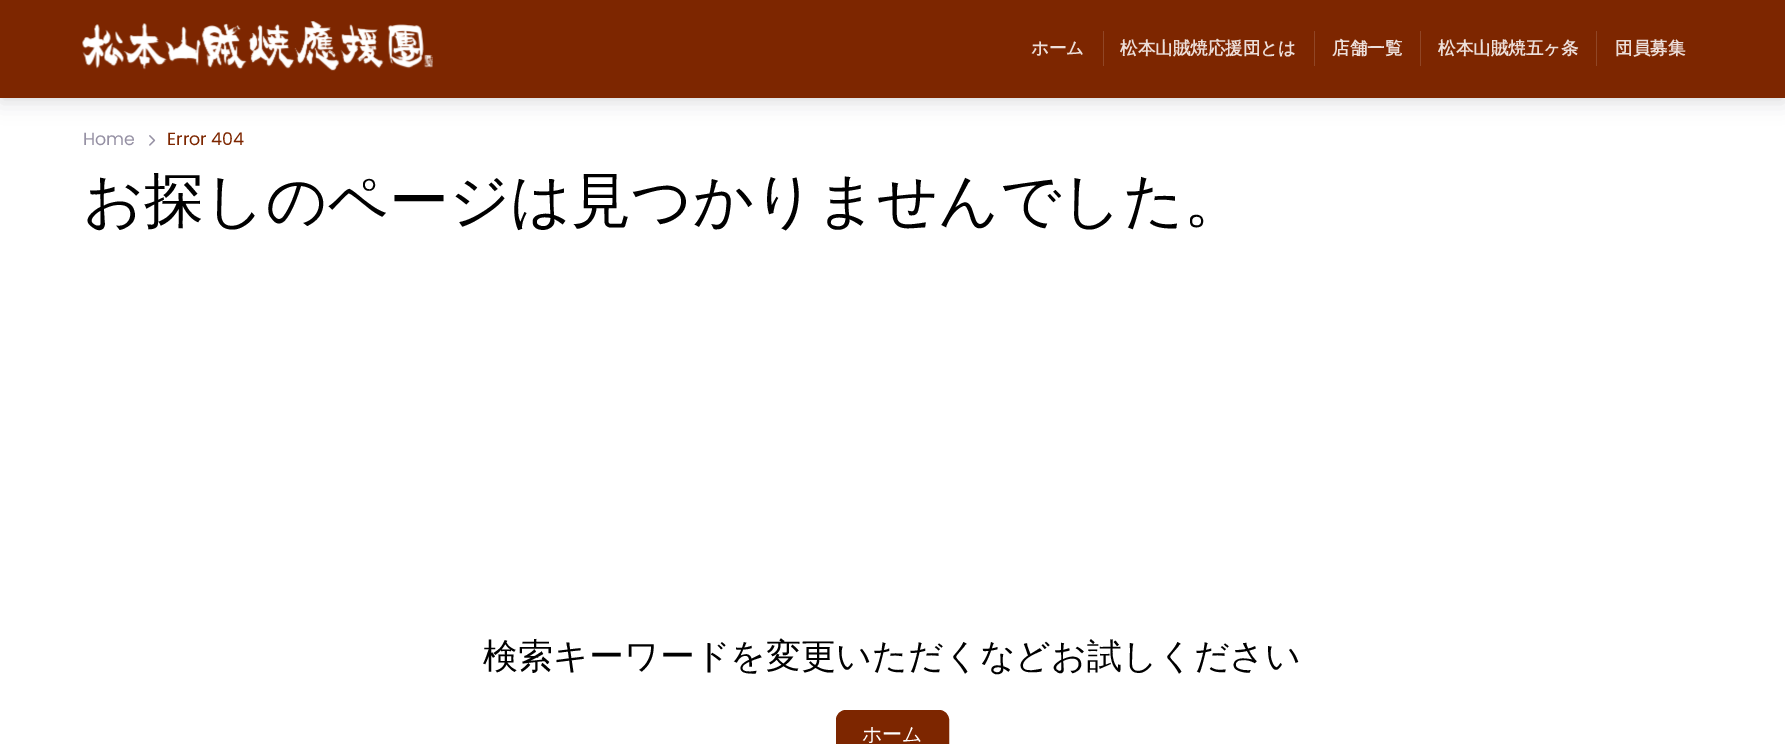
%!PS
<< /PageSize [1785 744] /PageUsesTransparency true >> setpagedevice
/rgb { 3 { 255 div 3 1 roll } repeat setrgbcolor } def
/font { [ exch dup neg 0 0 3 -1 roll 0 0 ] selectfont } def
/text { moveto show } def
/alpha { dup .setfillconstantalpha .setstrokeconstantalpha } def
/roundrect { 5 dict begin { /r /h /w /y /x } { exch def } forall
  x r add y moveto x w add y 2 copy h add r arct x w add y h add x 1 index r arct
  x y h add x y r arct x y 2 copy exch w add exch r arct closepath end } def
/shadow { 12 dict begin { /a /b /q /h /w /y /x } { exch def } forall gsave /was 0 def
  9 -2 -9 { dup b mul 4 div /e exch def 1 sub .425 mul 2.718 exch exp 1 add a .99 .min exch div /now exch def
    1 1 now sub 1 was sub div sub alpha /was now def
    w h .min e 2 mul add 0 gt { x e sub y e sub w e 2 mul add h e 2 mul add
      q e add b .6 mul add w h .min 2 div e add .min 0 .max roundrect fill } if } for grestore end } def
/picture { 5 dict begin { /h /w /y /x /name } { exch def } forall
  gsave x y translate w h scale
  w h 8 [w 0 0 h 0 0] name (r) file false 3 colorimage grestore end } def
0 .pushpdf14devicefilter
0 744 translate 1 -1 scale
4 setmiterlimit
255 255 255 rgb
0 0 1785 744 rectfill
31 27 45 rgb
0 5 1785 98 0 10 0.12 shadow
5 8 1775 87 0 5 0.12 shadow
125 38 0 rgb
0 0 1785 98 rectfill
(img_01.rgb) 82 21 351 50 picture
144 70 38 rgb
1103 31 1 35 rectfill
1314 31 1 35 rectfill
1420 31 1 35 rectfill
1596 31 1 35 rectfill
(img_02.rgb) 149 135 7 11 picture
125 38 0 rgb
836.5 710.5 112 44 9.5 roundrect gsave fill grestore
stroke
/WenQuanYiZenHei-Bold 17.5 font
236 222 217 rgb
(ホーム) 1031 54 text
(松本山賊焼応援団とは) 1120 54 text
(店舗一覧) 1332 54 text
(松本山賊焼五ヶ条) 1438 54 text
(団員募集) 1615 54 text
/Poppins-Regular 17.5 font
150 145 164 rgb
(Home) 83 145 text
125 38 0 rgb
(Error 404) 167 145 text
/WenQuanYiZenHei-Medium 60 font
0 0 0 rgb
(お探しのページは見つかりませんでした。) 83 221 text
/WenQuanYiZenHei-Medium 35 font
(検索キーワードを変更いただくなどお試しください) 483 668 text
/WenQuanYiZenHei-Medium 20 font
255 255 255 rgb
(ホーム) 862 741 text
.poppdf14devicefilter showpage
